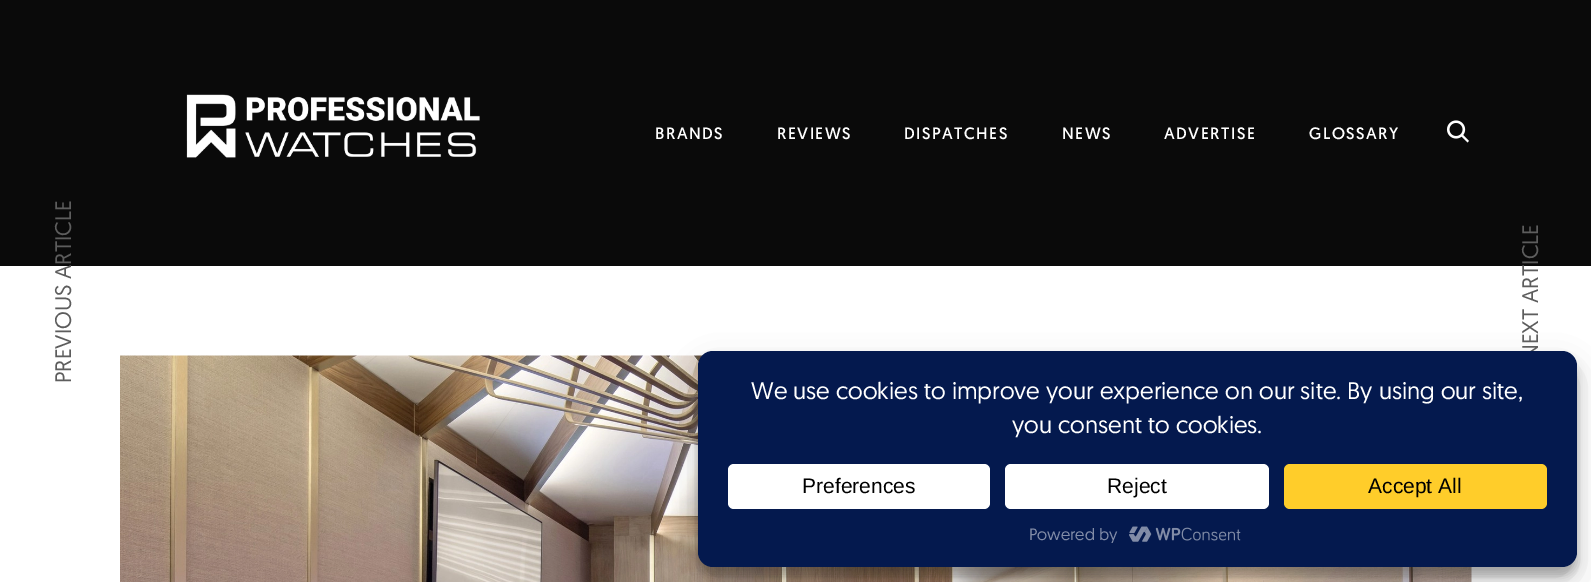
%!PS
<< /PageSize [1591 582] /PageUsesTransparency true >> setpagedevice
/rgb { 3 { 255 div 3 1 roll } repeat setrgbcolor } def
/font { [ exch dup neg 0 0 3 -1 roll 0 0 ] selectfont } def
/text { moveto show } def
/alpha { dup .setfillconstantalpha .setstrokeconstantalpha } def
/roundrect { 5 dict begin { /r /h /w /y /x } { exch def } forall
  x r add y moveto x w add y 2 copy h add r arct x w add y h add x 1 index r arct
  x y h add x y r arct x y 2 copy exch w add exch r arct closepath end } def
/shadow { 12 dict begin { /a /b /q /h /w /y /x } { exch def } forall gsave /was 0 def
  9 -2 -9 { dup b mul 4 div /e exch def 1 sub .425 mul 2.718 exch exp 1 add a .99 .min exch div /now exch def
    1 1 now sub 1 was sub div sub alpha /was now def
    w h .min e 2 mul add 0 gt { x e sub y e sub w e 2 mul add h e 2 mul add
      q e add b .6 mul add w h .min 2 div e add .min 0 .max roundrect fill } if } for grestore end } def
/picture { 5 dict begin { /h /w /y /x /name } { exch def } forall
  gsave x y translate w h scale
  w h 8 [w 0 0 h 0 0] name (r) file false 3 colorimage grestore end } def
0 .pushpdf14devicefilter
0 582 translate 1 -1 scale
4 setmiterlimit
255 255 255 rgb
0 0 1591 582 rectfill
10 10 10 rgb
0 0 1591 266 rectfill
(img_01.rgb) 186 94 294 64 picture
(img_02.rgb) 1446 120 23 23 picture
(img_03.rgb) 120 355 1352 227 picture
0 0 0 rgb
698 360 879 216 15 4.5 0.23 shadow
698 366 879 216 15 15 0.19 shadow
/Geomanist-Regular 16.5 font
255 255 255 rgb
655 139 moveto 1.5 0 (BRANDS) ashow
777 139 moveto 1.5 0 (REVIEWS) ashow
904 139 moveto 1.5 0 (DISPATCHES) ashow
1062 139 moveto 1.5 0 (NEWS) ashow
1164 139 moveto 1.5 0 (ADVERTISE) ashow
1309 139 moveto 1.5 0 (GLOSSARY) ashow
/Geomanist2-Regular 22.5 font
93 93 93 rgb
gsave 71 383 translate -90 rotate 0 0 moveto (PREVIOUS ARTICLE) show grestore
gsave 1538 360 translate -90 rotate 0 0 moveto (NEXT ARTICLE) show grestore
4 25 78 rgb
698 351 879 216 15 roundrect fill
/Geomanist2-Regular 24 font
255 255 255 rgb
(We use cookies to improve your experience on our site. By using our site,) 751 399 text
(you consent to cookies.) 1012 433 text
728 464 262 45 6 roundrect fill
/LiberationSans-Regular 21 font
0 0 0 rgb
(Preferences) 802 493 text
255 255 255 rgb
1005 464 264 45 6 roundrect fill
0 0 0 rgb
(Reject) 1107 493 text
255 205 42 rgb
1284 464 263 45 6 roundrect fill
0 0 0 rgb
(Accept All) 1368 493 text
/Geomanist2-Regular 16.5 font
130 140 167 rgb
(Powered by) 1029 540 text
(img_04.rgb) 1129 526 112 16 picture
.poppdf14devicefilter showpage
